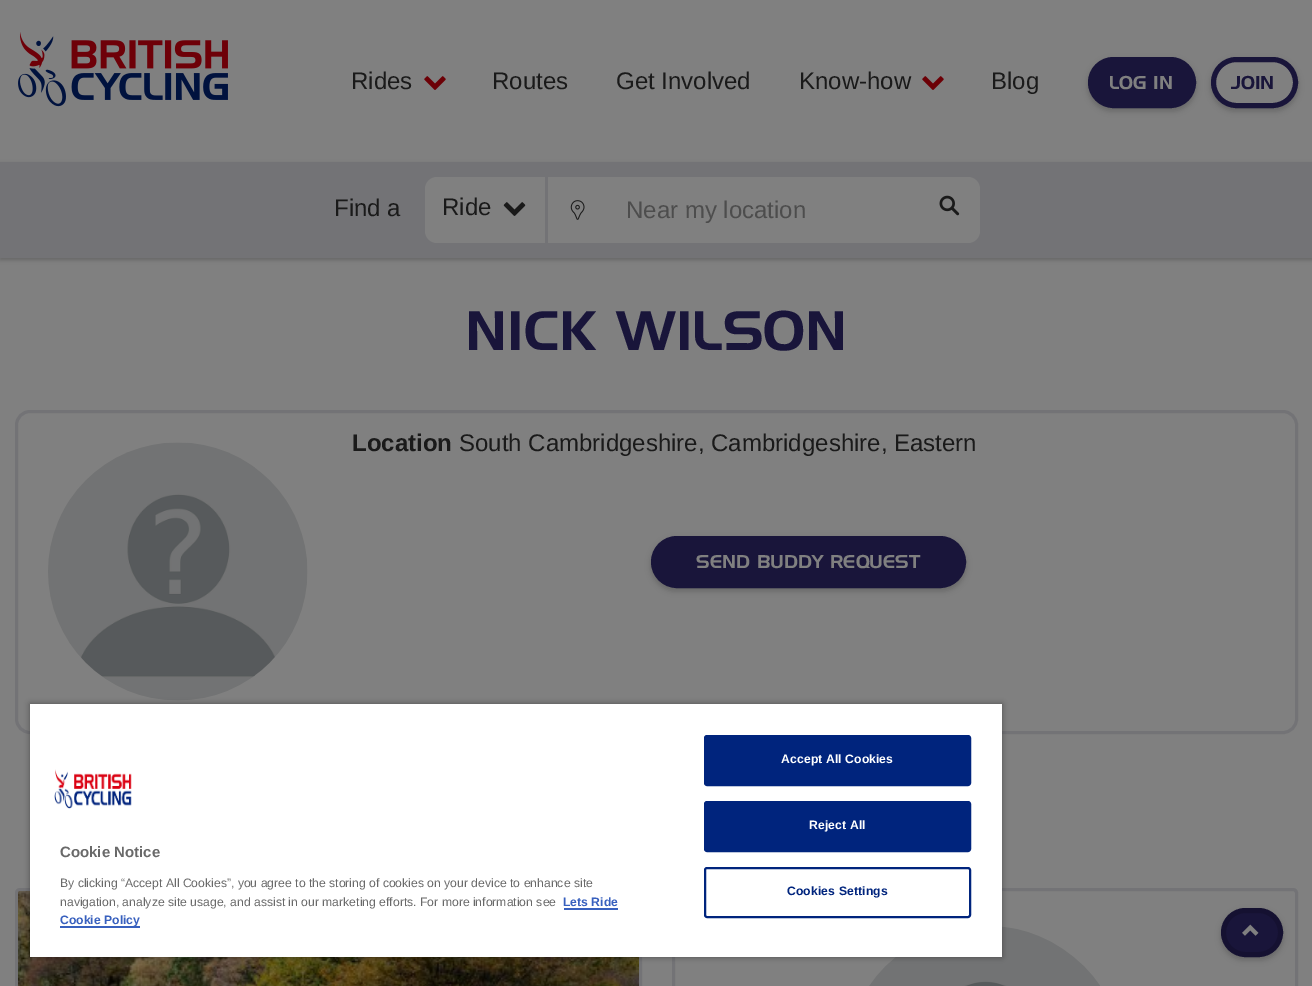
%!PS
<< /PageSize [1312 986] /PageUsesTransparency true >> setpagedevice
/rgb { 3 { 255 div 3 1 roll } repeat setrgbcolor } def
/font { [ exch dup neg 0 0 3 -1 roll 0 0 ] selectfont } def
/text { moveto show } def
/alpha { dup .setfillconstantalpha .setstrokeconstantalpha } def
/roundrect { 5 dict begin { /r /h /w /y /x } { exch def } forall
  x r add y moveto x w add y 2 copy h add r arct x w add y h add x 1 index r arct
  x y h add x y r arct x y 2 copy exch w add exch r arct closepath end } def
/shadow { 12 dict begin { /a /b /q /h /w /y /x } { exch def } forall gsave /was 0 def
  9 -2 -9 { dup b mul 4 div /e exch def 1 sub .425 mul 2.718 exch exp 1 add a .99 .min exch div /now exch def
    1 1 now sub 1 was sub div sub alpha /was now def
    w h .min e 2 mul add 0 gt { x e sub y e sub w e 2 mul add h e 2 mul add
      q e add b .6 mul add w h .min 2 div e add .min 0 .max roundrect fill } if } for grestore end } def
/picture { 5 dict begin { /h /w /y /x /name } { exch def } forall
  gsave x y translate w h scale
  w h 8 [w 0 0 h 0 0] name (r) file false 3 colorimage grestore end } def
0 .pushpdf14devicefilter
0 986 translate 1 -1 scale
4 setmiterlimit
128 128 128 rgb
0 0 1312 986 rectfill
(img_01.rgb) 18 32 210 75 picture
(img_02.rgb) 424 76 22 14 picture
(img_02.rgb) 922 76 22 14 picture
0 0 0 rgb
1088 60 108 51 25.5 3 0.2 shadow
25 21 58 rgb
1090.5 59.5 103 46 23 roundrect gsave fill grestore
5 setlinewidth
stroke
gsave
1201 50 moveto 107 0 rlineto 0 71 rlineto -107 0 rlineto closepath 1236.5 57 moveto 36 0 rlineto 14 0 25.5 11.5 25.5 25.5 rcurveto 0 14 -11.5 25.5 -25.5 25.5 rcurveto -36 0 rlineto -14 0 -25.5 -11.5 -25.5 -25.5 rcurveto 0 -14 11.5 -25.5 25.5 -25.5 rcurveto closepath eoclip newpath
0 0 0 rgb
1211 60 87 51 25.5 3 0.2 shadow
grestore
1213.5 59.5 82 46 23 roundrect stroke
0 0 0 rgb
0 164 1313 96 0 2 0.2 shadow
115 115 118 rgb
0 162 1312 96 rectfill
128 128 128 rgb
437 177 moveto 108 0 rlineto 0 66 rlineto -108 0 rlineto -6.5 0 -12 -5.5 -12 -12 rcurveto 0 -42 rlineto 0 -6.5 5.5 -12 12 -12 rcurveto closepath fill
(img_03.rgb) 503 202 23 14 picture
548 177 372 66 rectfill
(img_04.rgb) 570 200 15 20 picture
920 177 moveto 48 0 rlineto 6.5 0 12 5.5 12 12 rcurveto 0 42 rlineto 0 6.5 -5.5 12 -12 12 rcurveto -48 0 rlineto closepath fill
(img_05.rgb) 939 195 21 21 picture
115 115 118 rgb
3 setlinewidth
16.5 411.5 1280 321 13.5 roundrect stroke
(img_06.rgb) 48 442 260 259 picture
0 0 0 rgb
651 539 315 52 26 3 0.2 shadow
25 21 58 rgb
653.5 538.5 310 47 23.5 roundrect gsave fill grestore
5 setlinewidth
stroke
115 115 118 rgb
3 setlinewidth
16.5 889.5 624 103 3.5 roundrect stroke
(img_08.rgb) 18 891 621 95 picture
673.5 889.5 623 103 3.5 roundrect stroke
(img_09.rgb) 869 926 231 60 picture
0 0 0 rgb
30 704 972 253 0 3 0.35 shadow
255 255 255 rgb
30 704 972 253 rectfill
(img_07.rgb) 54 769 78 40 picture
56 96 190 rgb
564 908 54 2 rectfill
60 926 80 2 rectfill
0 36 125 rgb
705 736 265 49 2 roundrect gsave fill grestore
2 setlinewidth
stroke
705 802 265 49 2 roundrect gsave fill grestore
stroke
705 868 265 49 2 roundrect stroke
0 0 0 rgb
1221 911 62 49 24.5 3 0.2 shadow
25 21 58 rgb
1223.5 910.5 57 44 22 roundrect gsave fill grestore
21 17 49 rgb
5 setlinewidth
stroke
(img_10.rgb) 1242 924 17 12 picture
/LiberationSans-Regular 24 font
26 26 26 rgb
(Rides) 351 89 text
(Routes) 492 89 text
(Get Involved) 616 89 text
(Know-how) 799 89 text
(Blog) 991 89 text
/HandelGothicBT-Regular 18 font
128 128 128 rgb
(LOG IN) 1109 89 text
25 21 58 rgb
(JOIN) 1231 89 text
/LiberationSans-Regular 24 font
26 26 26 rgb
(Find a) 334 216 text
(Ride) 442 215 text
77 77 77 rgb
(Near my location) 626 218 text
/HandelGothicBT-Regular 54 font
25 21 58 rgb
(NICK WILSON) 465 350 text
/LiberationSans-Bold 24 font
26 26 26 rgb
(Location) 352 451 text
/LiberationSans-Regular 24 font
(South Cambridgeshire, Cambridgeshire, Eastern) 459 451 text
/HandelGothicBT-Regular 18 font
128 128 128 rgb
(SEND BUDDY REQUEST) 696 568 text
/LiberationSans-Bold 15 font
105 105 105 rgb
(Cookie Notice) 60 857 text
/LiberationSans-Regular 12.2 font
(By clicking “Accept All Cookies”, you agree to the storing of cookies on your device to enhance site) 60 887 text
(navigation, analyze site usage, and assist in our marketing efforts. For more information see) 60 906 text
/LiberationSans-Bold 12.2 font
56 96 190 rgb
(Lets Ride) 563 906 text
(Cookie Policy) 60 924 text
255 255 255 rgb
781 763 moveto 0.1 0 (Accept All Cookies) ashow
809 829 moveto 0.1 0 (Reject All) ashow
0 36 125 rgb
787 895 moveto 0.1 0 (Cookies Settings) ashow
.poppdf14devicefilter showpage
